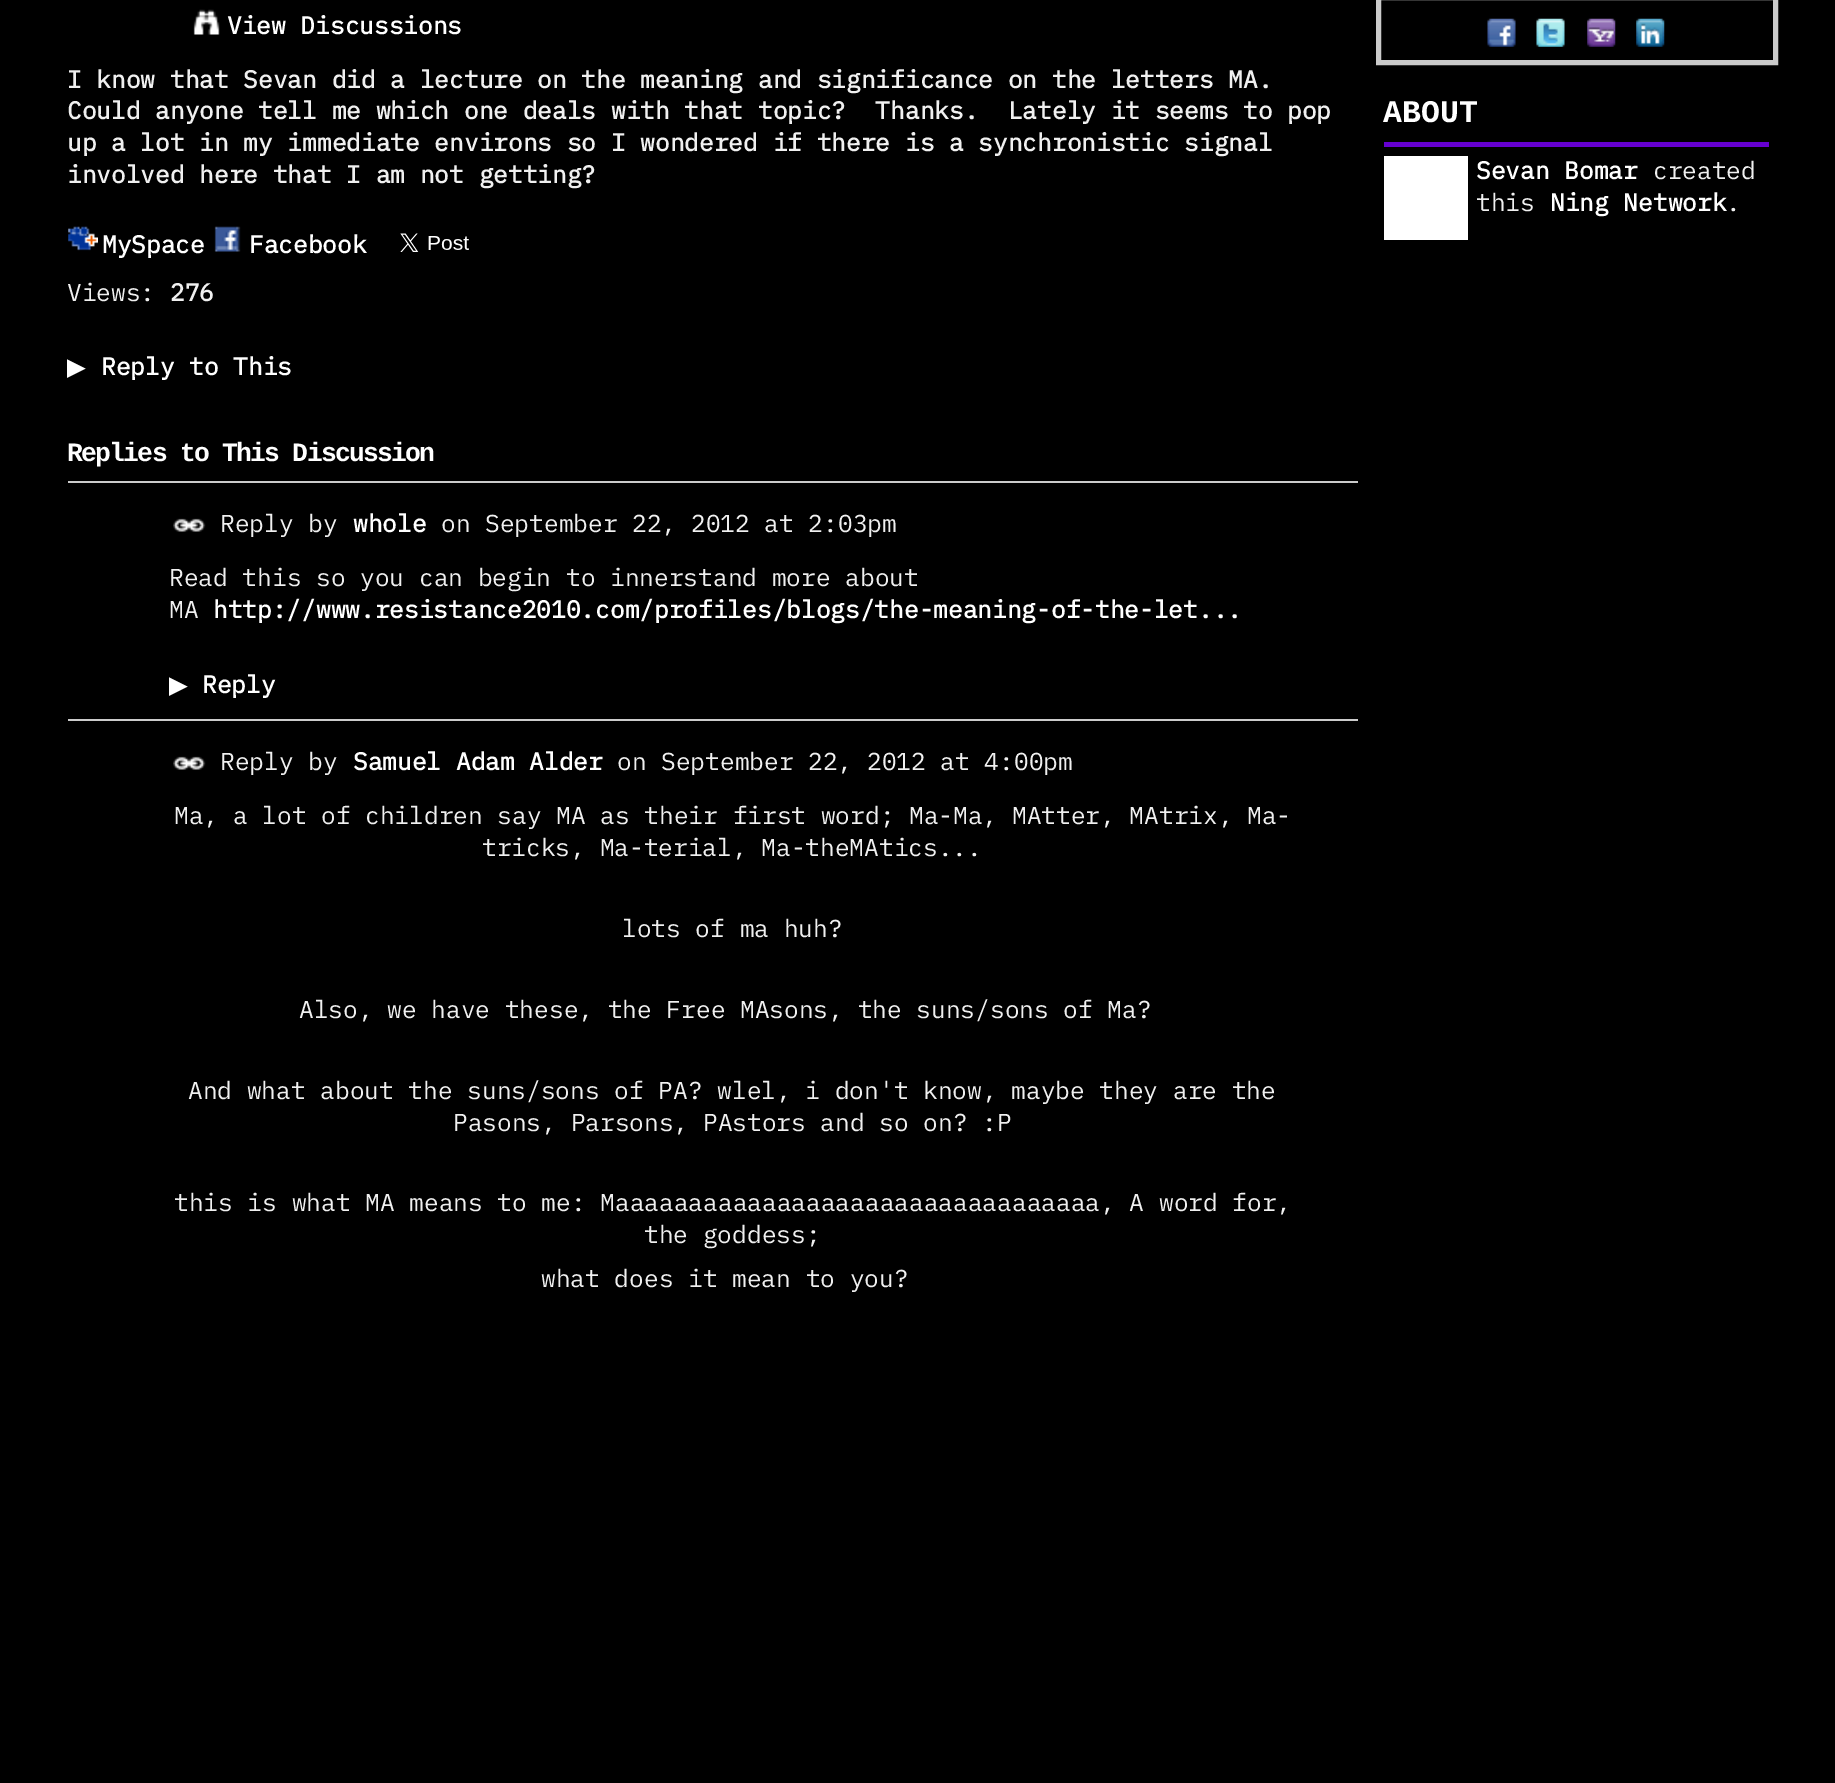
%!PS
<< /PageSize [1835 1783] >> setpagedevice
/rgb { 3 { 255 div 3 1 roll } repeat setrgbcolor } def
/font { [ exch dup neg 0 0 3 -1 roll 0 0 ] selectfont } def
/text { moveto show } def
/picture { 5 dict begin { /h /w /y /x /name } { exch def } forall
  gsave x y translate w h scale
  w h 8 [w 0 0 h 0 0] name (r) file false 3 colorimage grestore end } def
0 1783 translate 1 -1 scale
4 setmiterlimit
0 0 0 rgb
0 0 1835 1783 rectfill
(img_01.rgb) 193 9 27 26 picture
(img_02.rgb) 68 226 30 25 picture
(img_03.rgb) 214 226 27 26 picture
(img_04.rgb) 400 233 69 19 picture
203 203 203 rgb
68 481 1290 2 rectfill
(img_05.rgb) 173 518 33 14 picture
68 719 1290 2 rectfill
(img_05.rgb) 173 756 33 14 picture
5 setlinewidth
1378.5 -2.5 397 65 rectstroke
(img_06.rgb) 1487 18 29 29 picture
(img_07.rgb) 1536 18 29 29 picture
(img_08.rgb) 1587 18 29 29 picture
(img_09.rgb) 1636 18 29 29 picture
101 0 208 rgb
1384 142 385 5 rectfill
255 255 255 rgb
1384 156 84 84 rectfill
/IBMPlexMono-Bold 24.5 font
(View Discussions) 227 34 text
240 240 240 rgb
(I know that Sevan did a lecture on the meaning and significance on the letters MA.) 67 88 text
(Could anyone tell me which one deals with that topic?  Thanks.  Lately it seems to pop) 67 119 text
(up a lot in my immediate environs so I wondered if there is a synchronistic signal) 67 151 text
(involved here that I am not getting?) 67 183 text
255 255 255 rgb
(MySpace) 102 253 text
(Facebook) 249 253 text
/IBMPlexMono-Regular 24.5 font
240 240 240 rgb
(Views:) 67 301 text
/IBMPlexMono-Bold 24.5 font
(276) 170 301 text
/DejaVuSans-Regular 24.5 font
255 255 255 rgb
(▶) 67 375 text
/IBMPlexMono-Bold 24.5 font
(Reply to This) 101 375 text
/LiberationMono-Bold 26.4 font
67 461 moveto -1.75 0 (Replies to This Discussion) ashow
/IBMPlexMono-Regular 24.5 font
240 240 240 rgb
(Reply by) 220 532 text
/IBMPlexMono-Bold 24.5 font
255 255 255 rgb
(whole) 353 532 text
/IBMPlexMono-Regular 24.5 font
240 240 240 rgb
(on September 22, 2012 at 2:03pm) 441 532 text
(Read this so you can begin to innerstand more about) 169 586 text
(MA) 169 618 text
/IBMPlexMono-Bold 24.5 font
255 255 255 rgb
(http://www.resistance2010.com/profiles/blogs/the-meaning-of-the-let...) 213 618 text
/DejaVuSans-Regular 24.5 font
(▶) 169 693 text
/IBMPlexMono-Bold 24.5 font
(Reply) 202 693 text
/IBMPlexMono-Regular 24.5 font
240 240 240 rgb
(Reply by) 220 770 text
/IBMPlexMono-Bold 24.5 font
255 255 255 rgb
(Samuel Adam Alder) 353 770 text
/IBMPlexMono-Regular 24.5 font
240 240 240 rgb
(on September 22, 2012 at 4:00pm) 617 770 text
(Ma, a lot of children say MA as their first word; Ma-Ma, MAtter, MAtrix, Ma-) 174 824 text
(tricks, Ma-terial, Ma-theMAtics...) 482 856 text
(lots of ma huh?) 622 937 text
(Also, we have these, the Free MAsons, the suns/sons of Ma?) 299 1018 text
(And what about the suns/sons of PA? wlel, i don't know, maybe they are the) 188 1099 text
(Pasons, Parsons, PAstors and so on? :P) 453 1131 text
(this is what MA means to me: Maaaaaaaaaaaaaaaaaaaaaaaaaaaaaaaaa, A word for,) 174 1211 text
(the goddess;) 644 1243 text
(what does it mean to you?) 541 1287 text
/LiberationMono-Bold 31.5 font
255 255 255 rgb
(ABOUT) 1383 122 text
/IBMPlexMono-Bold 24.5 font
(Sevan Bomar) 1476 179 text
/IBMPlexMono-Regular 24.5 font
240 240 240 rgb
(created) 1653 179 text
(this) 1476 211 text
/IBMPlexMono-Bold 24.5 font
255 255 255 rgb
(Ning Network) 1550 211 text
/IBMPlexMono-Regular 24.5 font
240 240 240 rgb
(.) 1726 211 text
showpage
